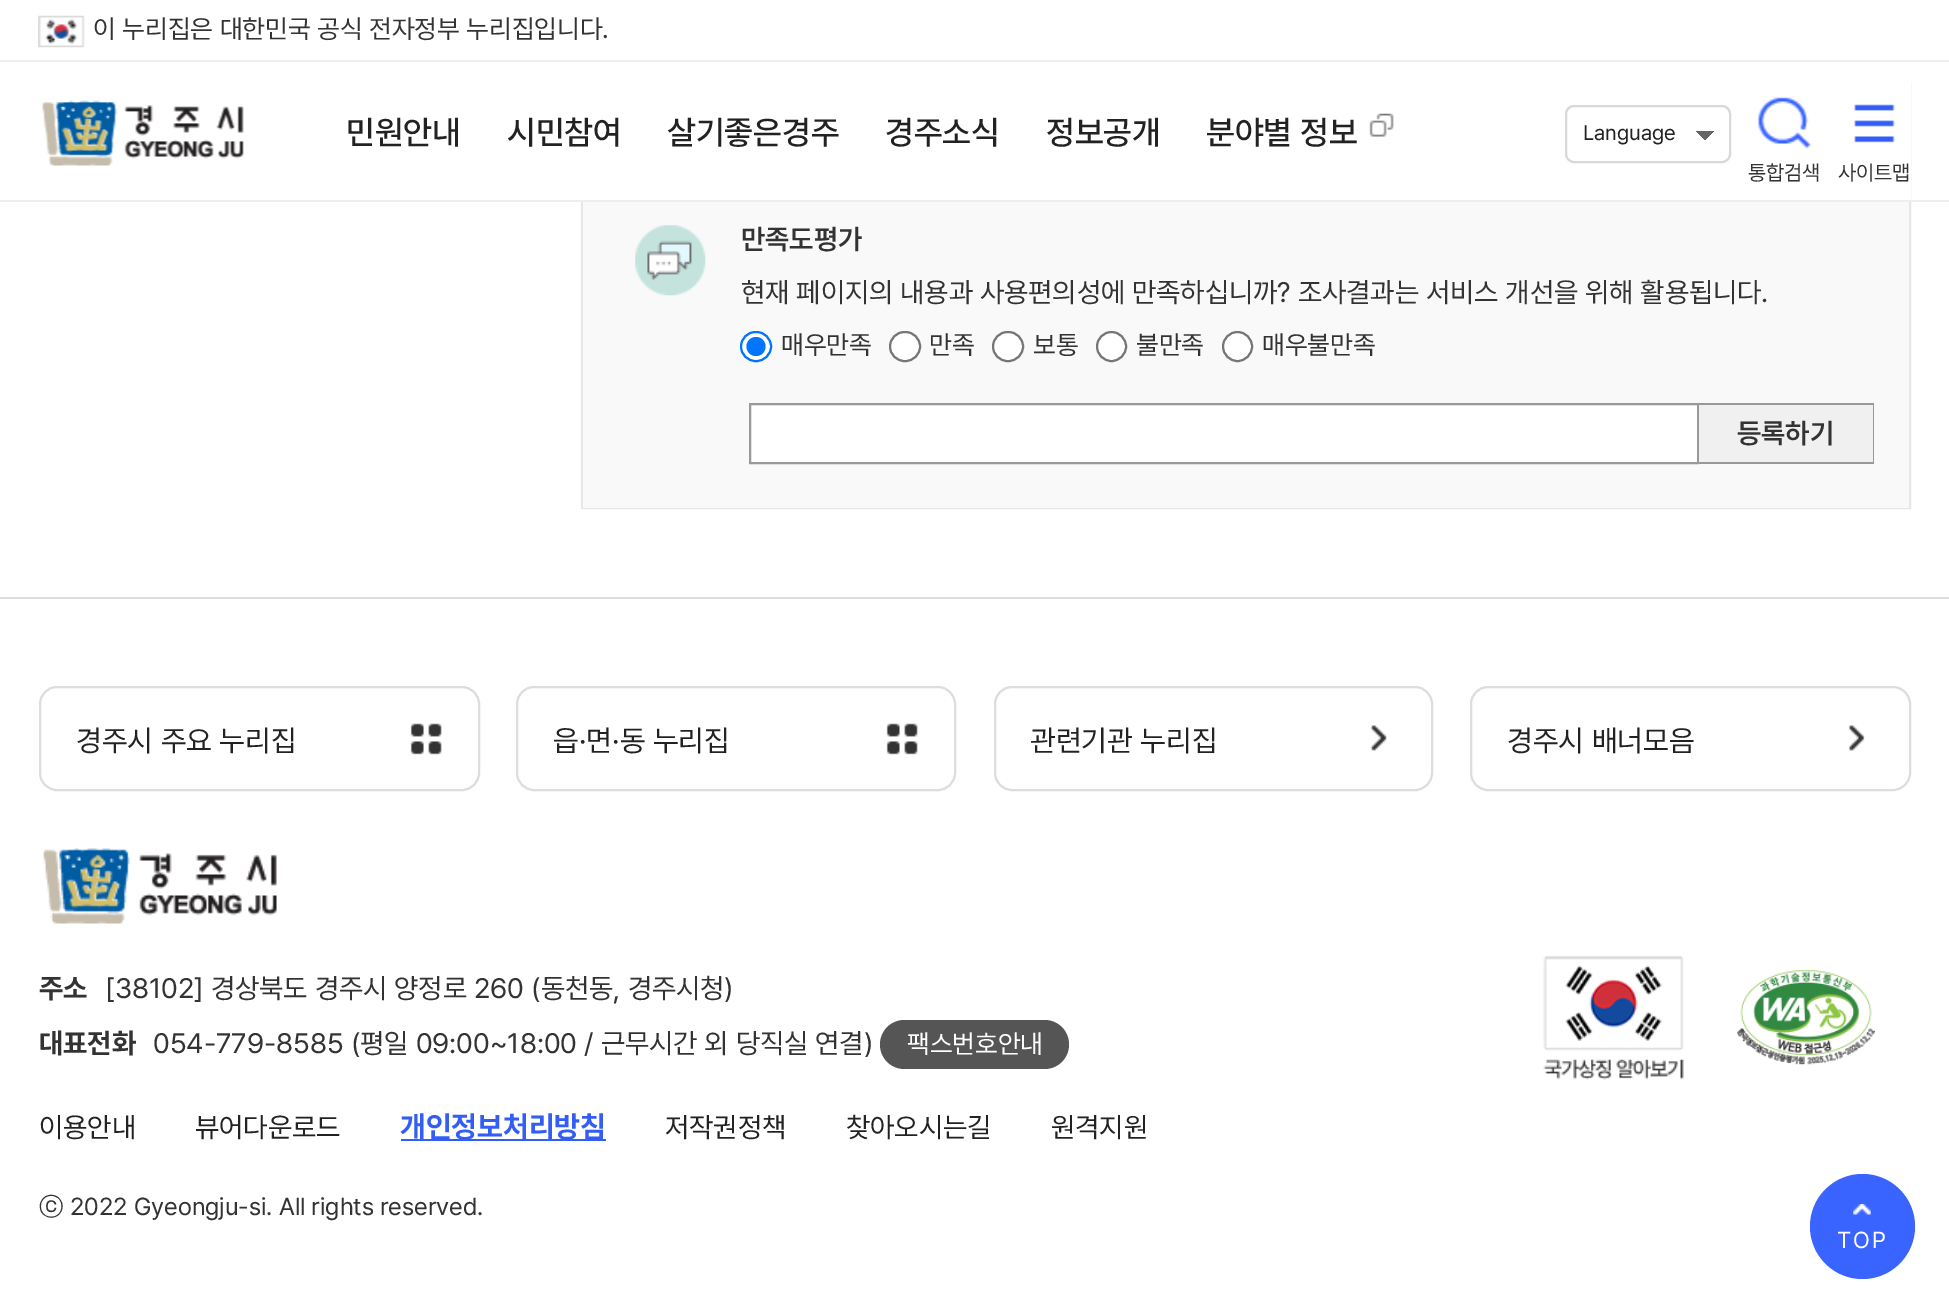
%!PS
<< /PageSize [1949 1313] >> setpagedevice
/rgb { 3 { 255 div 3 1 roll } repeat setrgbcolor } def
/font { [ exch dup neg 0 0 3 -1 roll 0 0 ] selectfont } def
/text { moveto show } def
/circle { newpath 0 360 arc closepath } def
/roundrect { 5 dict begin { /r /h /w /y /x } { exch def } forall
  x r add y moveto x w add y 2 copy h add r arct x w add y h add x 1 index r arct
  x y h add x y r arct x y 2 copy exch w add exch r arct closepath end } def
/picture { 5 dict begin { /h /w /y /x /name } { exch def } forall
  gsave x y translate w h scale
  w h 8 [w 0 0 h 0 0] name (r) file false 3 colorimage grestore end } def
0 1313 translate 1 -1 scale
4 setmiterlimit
255 255 255 rgb
0 0 1949 1313 rectfill
229 231 233 rgb
2 setlinewidth
582 83 1328 425 rectstroke
255 255 255 rgb
581 82 1330 118 rectfill
238 238 238 rgb
0 200 1949 2 rectfill
0 60 1949 2 rectfill
(img_01.rgb) 38 15 47 33 picture
(img_02.rgb) 42 100 202 66 picture
(img_03.rgb) 1369 113 25 24 picture
217 217 217 rgb
1566 106 164 56 8 roundrect stroke
gsave 1696.5 131 moveto 8.5 -8.5 rlineto 8.5 8.5 rlineto -8.5 9 rlineto closepath clip newpath
<< /ShadingType 2 /ColorSpace /DeviceRGB /Coords [1705 140 1705 122] /Extend [true true] /Function << /FunctionType 3 /Domain [0 1] /Functions [<< /FunctionType 2 /Domain [0 1] /C0 [0.4 0.4 0.4] /C1 [0.4 0.4 0.4] /N 1 >> << /FunctionType 2 /Domain [0 1] /C0 [1 1 1] /C1 [1 1 1] /N 1 >>] /Bounds [0.5] /Encode [0 1 0 1] >> >> shfill grestore
(img_04.rgb) 1757 97 54 52 picture
(img_05.rgb) 1854 104 41 39 picture
249 249 249 rgb
583 202 1326 306 rectfill
(img_06.rgb) 635 225 71 71 picture
255 255 255 rgb
741 332 30 29 14.5 roundrect gsave fill grestore
0 117 255 rgb
stroke
756 346.5 9.5 circle fill
255 255 255 rgb
890 332 30 29 14.5 roundrect gsave fill grestore
118 118 118 rgb
stroke
255 255 255 rgb
993 332 30 29 14.5 roundrect gsave fill grestore
118 118 118 rgb
stroke
255 255 255 rgb
1111.5 346.5 14.5 circle gsave fill grestore
118 118 118 rgb
stroke
255 255 255 rgb
1237.5 346.5 14.5 circle gsave fill grestore
118 118 118 rgb
stroke
255 255 255 rgb
750 404 moveto 948 0 rlineto 0 59 rlineto -948 0 rlineto closepath gsave fill grestore
153 153 153 rgb
stroke
240 240 240 rgb
1699 405 174 57 rectfill
153 153 153 rgb
1699 403 175 2 rectfill
1873 403 1 61 rectfill
1699 462 175 2 rectfill
221 221 221 rgb
0 597 1949 2 rectfill
40 687 439 103 17 roundrect stroke
(img_07.rgb) 410 723 32 32 picture
517 687 438 103 17 roundrect stroke
(img_07.rgb) 886 723 32 32 picture
995 687 437 103 17 roundrect stroke
(img_08.rgb) 1370 725 17 26 picture
1471 687 439 103 17 roundrect stroke
(img_09.rgb) 1848 725 17 26 picture
(img_10.rgb) 43 848 234 76 picture
85 85 85 rgb
880 1020 189 49 24.5 roundrect fill
52 93 245 rgb
401 1139 205 2 rectfill
(img_11.rgb) 1543 955 141 125 picture
(img_12.rgb) 1737 970 138 95 picture
58 100 255 rgb
1862.5 1226.5 52.5 circle fill
(img_13.rgb) 1853 1204 18 11 picture
/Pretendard-Regular 26.25 font
51 51 51 rgb
(이 누리집은 대한민국 공식 전자정부 누리집입니다.) 93 38 text
/Pretendard-Medium 33.25 font
34 34 34 rgb
(민원안내) 346 144 text
(시민참여) 507 144 text
(살기좋은경주) 667 144 text
(경주소식) 885 144 text
(정보공개) 1046 144 text
(분야별 정보) 1206 144 text
/Pretendard-Regular 21 font
(Language) 1583 140 text
51 51 51 rgb
(통합검색) 1748 180 text
(사이트맵) 1838 180 text
/Pretendard-SemiBold 28 font
(만족도평가) 741 249 text
/Pretendard-Regular 28 font
(현재 페이지의 내용과 사용편의성에 만족하십니까? 조사결과는 서비스 개선을 위해 활용됩니다.) 741 302 text
/Pretendard-Regular 26.25 font
(매우만족) 781 354 text
(만족) 929 354 text
(보통) 1033 354 text
(불만족) 1136 354 text
(매우불만족) 1262 354 text
/Pretendard-SemiBold 28 font
(등록하기) 1737 443 text
/Pretendard-Regular 29.75 font
34 34 34 rgb
(경주시 주요 누리집) 76 751 text
(읍·면·동 누리집) 553 751 text
(관련기관 누리집) 1030 751 text
(경주시 배너모음) 1507 751 text
/Pretendard-Bold 28 font
51 51 51 rgb
(주소) 39 998 text
/Pretendard-Regular 28 font
([38102] 경상북도 경주시 양정로 260 \(동천동, 경주시청\)) 105 998 text
/Pretendard-Bold 28 font
(대표전화) 39 1053 text
/Pretendard-Regular 28 font
(054-779-8585 \(평일 09:00~18:00 / 근무시간 외 당직실 연결\)) 153 1053 text
/Pretendard-Regular 26.25 font
255 255 255 rgb
(팩스번호안내) 907 1053 text
/Pretendard-Regular 28 font
34 34 34 rgb
(이용안내) 39 1137 text
(뷰어다운로드) 195 1137 text
/Pretendard-Bold 29.75 font
52 93 245 rgb
(개인정보처리방침) 400 1137 text
/Pretendard-Regular 28 font
34 34 34 rgb
(저작권정책) 665 1137 text
(찾아오시는길) 846 1137 text
(원격지원) 1051 1137 text
/WenQuanYiZenHei-Medium 24.5 font
51 51 51 rgb
(ⓒ) 39 1215 text
/Pretendard-Regular 24.5 font
(2022 Gyeongju-si. All rights reserved.) 70 1215 text
/Pretendard-Regular 23 font
255 255 255 rgb
1837 1248 moveto 2 0 (TOP) ashow
showpage
